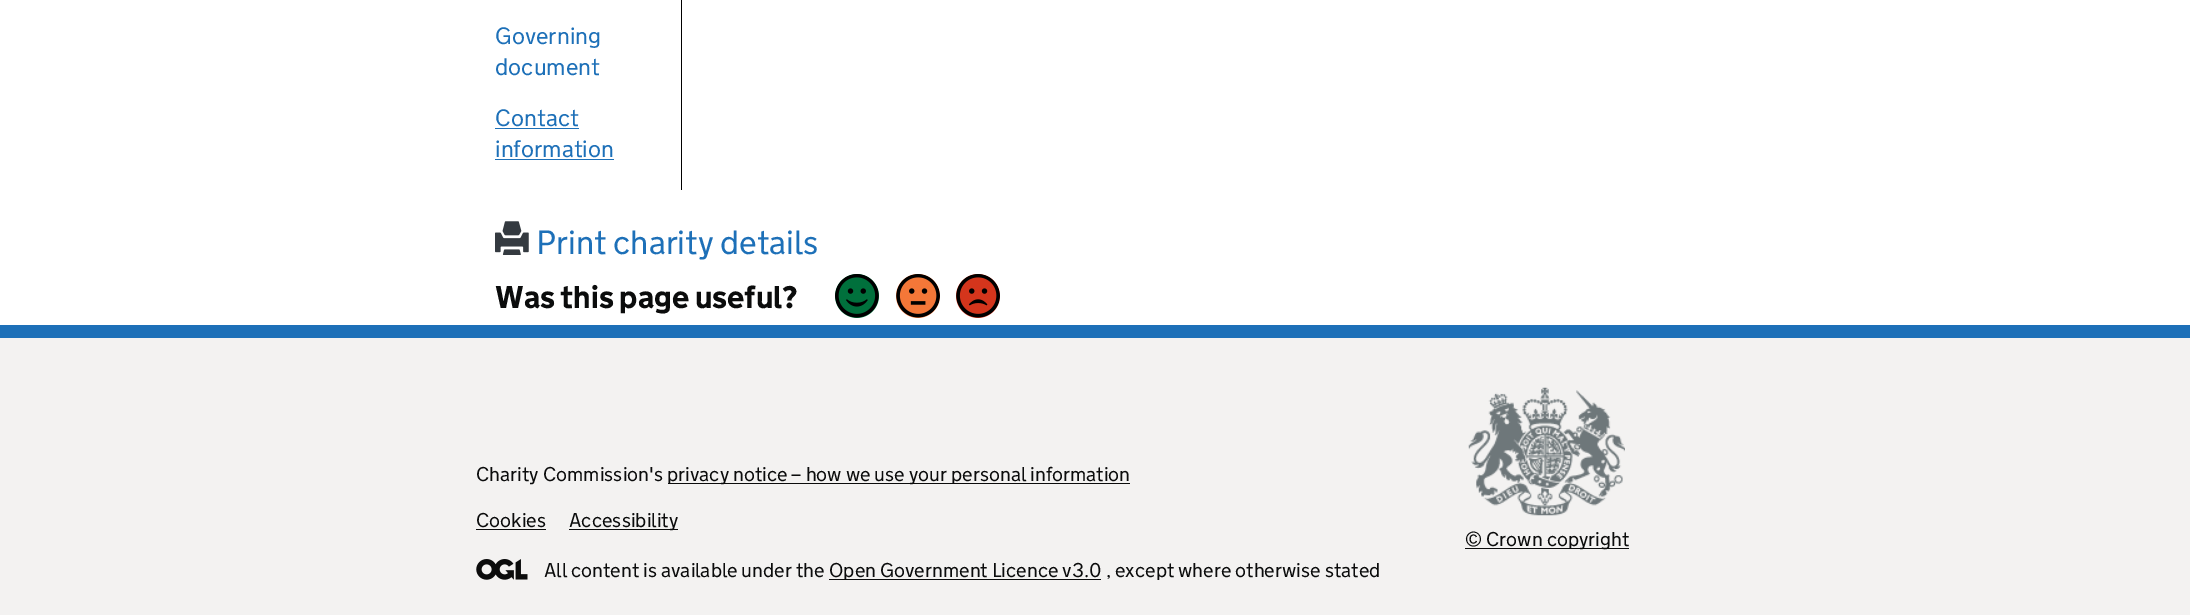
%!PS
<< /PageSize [2190 615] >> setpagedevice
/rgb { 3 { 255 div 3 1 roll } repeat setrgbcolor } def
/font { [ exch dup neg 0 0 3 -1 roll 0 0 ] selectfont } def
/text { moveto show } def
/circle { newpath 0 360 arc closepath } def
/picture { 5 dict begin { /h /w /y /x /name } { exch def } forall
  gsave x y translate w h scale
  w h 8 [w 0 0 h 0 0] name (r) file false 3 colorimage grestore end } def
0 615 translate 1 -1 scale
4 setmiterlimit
255 255 255 rgb
0 0 2190 615 rectfill
0 0 0 rgb
681 0 1 190 rectfill
29 112 184 rgb
495 128 84 1 rectfill
495 159 119 1 rectfill
(img_01.rgb) 495 221 34 34 picture
0 112 60 rgb
857 296 22 circle fill
(img_02.rgb) 835 274 44 44 picture
244 119 56 rgb
918 296 22 circle fill
(img_03.rgb) 896 274 44 44 picture
212 53 28 rgb
978 296 22 circle fill
(img_04.rgb) 956 274 44 44 picture
243 242 241 rgb
0 338 2190 277 rectfill
29 112 184 rgb
0 325 2190 13 rectfill
11 12 12 rgb
668 483 462 1 rectfill
476 529 70 1 rectfill
569 529 109 1 rectfill
(img_05.rgb) 476 559 52 21 picture
829 579 272 1 rectfill
(img_06.rgb) 1468 387 157 129 picture
1465 548 164 1 rectfill
/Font-Light 23.75 font
29 112 184 rgb
(Governing) 495 44 text
(document) 495 75 text
(Contact) 495 126 text
(information) 495 157 text
/Font-Light 33.75 font
(Print charity details) 536 254 text
/Font-Bold 31.25 font
11 12 12 rgb
(Was this page useful?) 495 308 text
/Font-Light 20 font
(Charity Commission's) 476 481 text
(privacy notice – how we use your personal information) 667 481 text
(Cookies) 476 527 text
(Accessibility) 569 527 text
(All content is available under the) 544 577 text
(Open Government Licence v3.0 , except where otherwise stated) 829 577 text
(© Crown copyright) 1465 546 text
showpage
